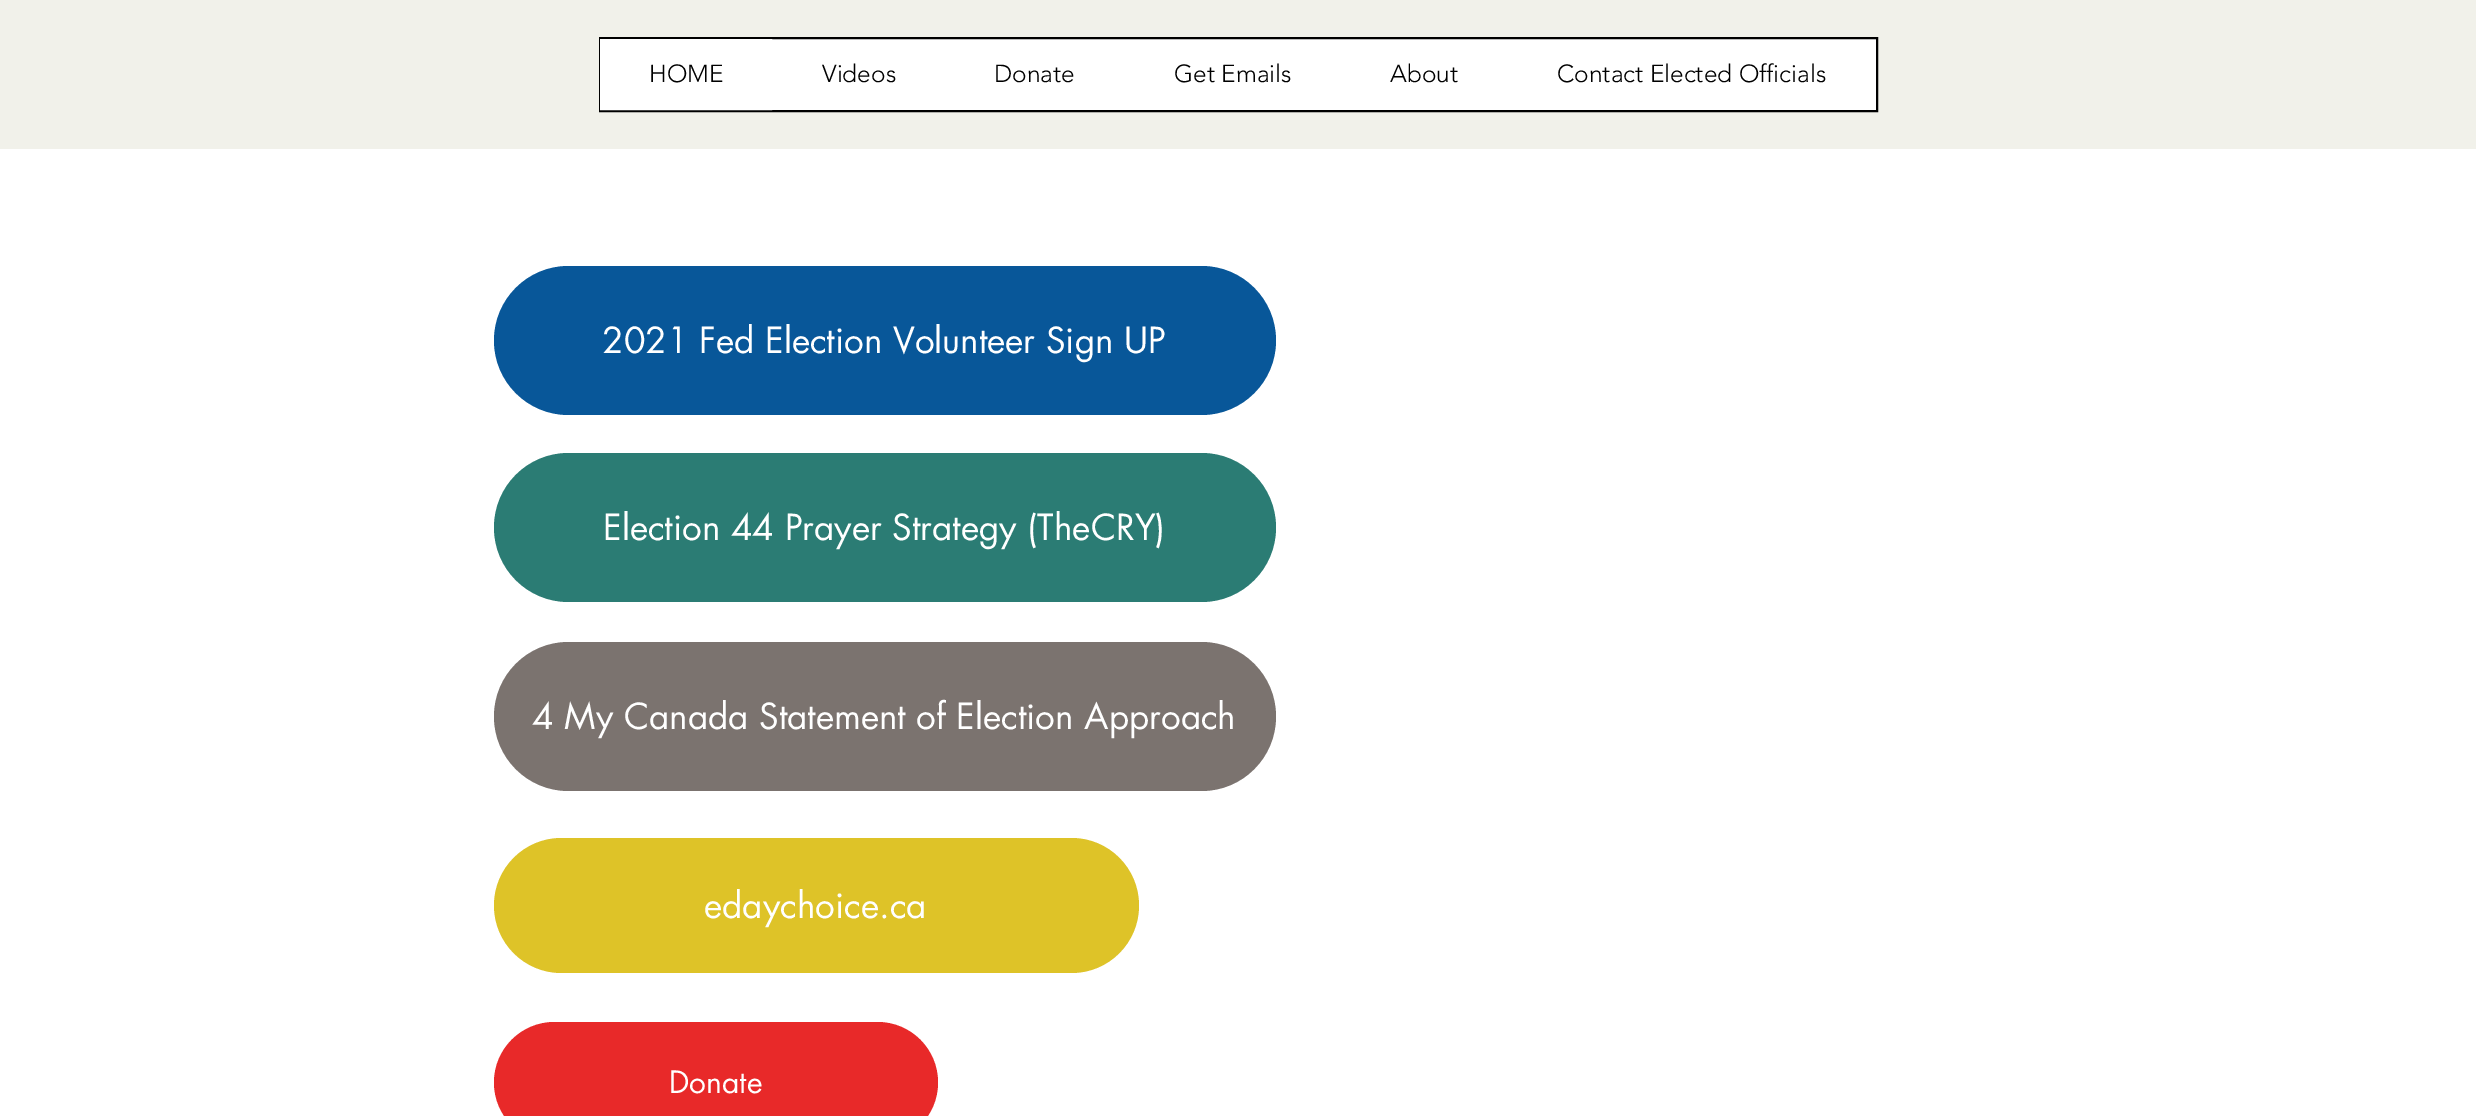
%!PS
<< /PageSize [2476 1116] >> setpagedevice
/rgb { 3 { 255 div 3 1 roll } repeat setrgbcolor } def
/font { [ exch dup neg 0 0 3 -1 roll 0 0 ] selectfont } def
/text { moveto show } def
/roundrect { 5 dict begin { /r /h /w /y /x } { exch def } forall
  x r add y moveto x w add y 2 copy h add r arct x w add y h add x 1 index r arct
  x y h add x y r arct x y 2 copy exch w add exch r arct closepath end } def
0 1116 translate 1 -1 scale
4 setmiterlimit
255 255 255 rgb
0 0 2476 1116 rectfill
241 241 234 rgb
0 0 2476 149 rectfill
255 255 255 rgb
604 39 1272 71 rectfill
0 0 0 rgb
2 setlinewidth
600 38 1277 73 rectstroke
255 255 255 rgb
4 setlinewidth
602 41 168 67 rectstroke
8 87 153 rgb
494 266 782 149 74.5 roundrect fill
43 124 116 rgb
494 453 782 149 74.5 roundrect fill
123 115 111 rgb
494 642 782 149 74.5 roundrect fill
222 195 40 rgb
494 838 645 135 67.5 roundrect fill
232 41 41 rgb
494 1022 444 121 60.5 roundrect fill
/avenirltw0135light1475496-Light 24.5 font
0 0 0 rgb
(HOME) 649 82 text
(Videos) 822 82 text
(Donate) 994 82 text
(Get Emails) 1174 82 text
(About) 1390 82 text
(Contact Elected Officials) 1557 82 text
/futura-Regular 35 font
255 255 255 rgb
(2021 Fed Election Volunteer Sign UP) 602 353 text
(Election 44 Prayer Strategy \(TheCRY\)) 603 540 text
(4 My Canada Statement of Election Approach) 532 729 text
(edaychoice.ca) 704 918 text
/futura-Regular 30 font
(Donate) 669 1093 text
showpage
